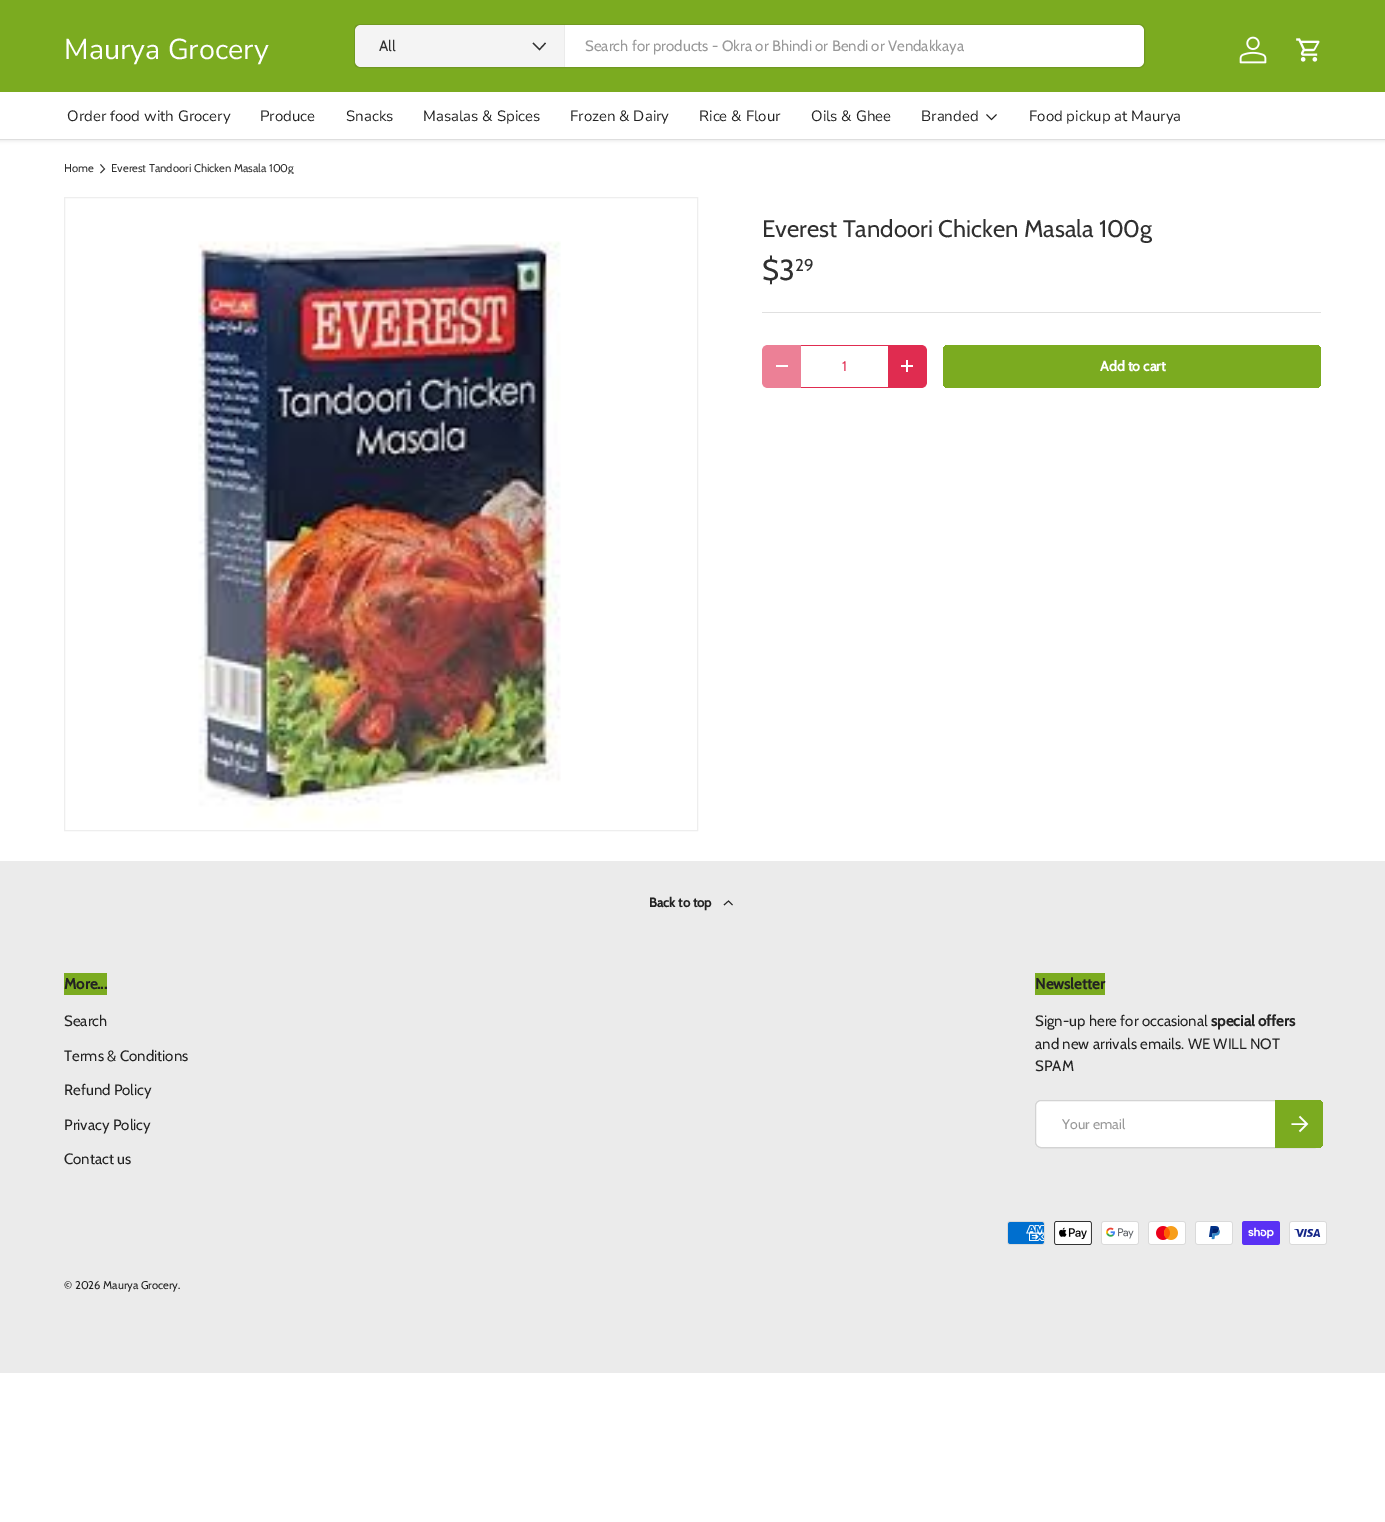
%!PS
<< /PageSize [1385 1522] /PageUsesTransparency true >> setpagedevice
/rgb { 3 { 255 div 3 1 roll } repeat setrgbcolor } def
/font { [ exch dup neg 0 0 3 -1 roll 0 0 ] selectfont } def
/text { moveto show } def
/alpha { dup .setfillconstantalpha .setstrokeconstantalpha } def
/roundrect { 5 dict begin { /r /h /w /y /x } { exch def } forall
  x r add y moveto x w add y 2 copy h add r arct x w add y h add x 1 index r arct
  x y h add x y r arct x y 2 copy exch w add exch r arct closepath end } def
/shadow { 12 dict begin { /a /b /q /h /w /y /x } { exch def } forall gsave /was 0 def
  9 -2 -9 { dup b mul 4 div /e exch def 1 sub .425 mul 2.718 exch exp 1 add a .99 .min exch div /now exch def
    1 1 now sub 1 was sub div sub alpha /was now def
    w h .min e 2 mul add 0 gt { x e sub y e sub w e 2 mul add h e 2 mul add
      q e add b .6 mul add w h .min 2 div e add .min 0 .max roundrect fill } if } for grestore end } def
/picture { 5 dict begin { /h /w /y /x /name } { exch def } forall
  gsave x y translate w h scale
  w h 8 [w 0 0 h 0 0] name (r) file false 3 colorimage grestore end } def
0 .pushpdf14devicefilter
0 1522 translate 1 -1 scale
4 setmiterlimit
255 255 255 rgb
0 0 1385 1522 rectfill
0 0 0 rgb
-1 -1 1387 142 0 1.5 0.08 shadow
123 171 32 rgb
0 0 1385 92 rectfill
112 153 34 rgb
354.5 24.5 790 43 5.5 roundrect stroke
255 255 255 rgb
355 25 789 42 6 roundrect fill
0.05 alpha
48 48 48 rgb
355 25 209 42 rectfill
1 alpha
235 235 235 rgb
564 25 1 42 rectfill
48 48 48 rgb
1.2 setlinewidth
545.5 43 moveto -6 6.5 rlineto -6.5 -6.5 rlineto stroke
(img_01.rgb) 1239 36 28 28 picture
(img_02.rgb) 1296 38 24 24 picture
255 255 255 rgb
0 92 1385 47 rectfill
34 34 34 rgb
1 setlinewidth
996.5 114.5 moveto -5 5 rlineto -5 -5 rlineto stroke
222 222 222 rgb
0 139 1385 1 rectfill
48 48 48 rgb
0.8 setlinewidth
100.5 164.5 moveto 4 4.5 rlineto -4 4 rlineto stroke
238 238 238 rgb
1 setlinewidth
64.5 197.5 633 633 rectstroke
(img_03.rgb) 198 241 363 587 picture
224 224 224 rgb
762 312 559 1 rectfill
236 128 150 rgb
768 345 moveto 33 0 rlineto 0 43 rlineto -33 0 rlineto -3.5 0 -6 -2.5 -6 -6 rcurveto 0 -31 rlineto 0 -3.5 2.5 -6 6 -6 rcurveto closepath fill
255 255 255 rgb
776 365 12 2 rectfill
224 44 80 rgb
801 387 87 1 rectfill
801 345 87 1 rectfill
888 345 moveto 33 0 rlineto 3.5 0 6 2.5 6 6 rcurveto 0 31 rlineto 0 3.5 -2.5 6 -6 6 rcurveto -33 0 rlineto closepath fill
255 255 255 rgb
901 365 12 2 rectfill
906 360 2 12 rectfill
gsave 943 345 378 43 6 roundrect clip newpath
<< /ShadingType 2 /ColorSpace /DeviceRGB /Coords [215 232 1293 501] /Extend [true true] /Function << /FunctionType 3 /Domain [0 1] /Functions [<< /FunctionType 2 /Domain [0 1] /C0 [0.588 0.749 0.286] /C1 [0.588 0.749 0.286] /N 1 >> << /FunctionType 2 /Domain [0 1] /C0 [0.482 0.671 0.125] /C1 [0.482 0.671 0.125] /N 1 >>] /Bounds [0.6] /Encode [0 1 0 1] >> >> shfill grestore
235 235 235 rgb
0 861 1385 512 rectfill
34 34 34 rgb
0.9 setlinewidth
724 905 moveto 4.5 -4 rlineto 4 4 rlineto stroke
123 171 32 rgb
64 973 43 22 rectfill
1035 973 70 22 rectfill
255 255 255 rgb
1035 1100 286 48 6 roundrect fill
0.2 alpha
34 34 34 rgb
1 setlinewidth
1035.5 1100.5 285 47 5.5 roundrect stroke
1 alpha
gsave 1275 1100 moveto 42 0 rlineto 3.5 0 6 2.5 6 6 rcurveto 0 36 rlineto 0 3.5 -2.5 6 -6 6 rcurveto -42 0 rlineto closepath clip newpath
<< /ShadingType 2 /ColorSpace /DeviceRGB /Coords [1178 1106 1324 1142] /Extend [true true] /Function << /FunctionType 3 /Domain [0 1] /Functions [<< /FunctionType 2 /Domain [0 1] /C0 [0.588 0.749 0.286] /C1 [0.588 0.749 0.286] /N 1 >> << /FunctionType 2 /Domain [0 1] /C0 [0.482 0.671 0.125] /C1 [0.482 0.671 0.125] /N 1 >>] /Bounds [0.6] /Encode [0 1 0 1] >> >> shfill grestore
255 255 255 rgb
1.5 setlinewidth
1291.5 1124 moveto 15 0 rlineto 1299.5 1116.5 moveto 7.5 7.5 rlineto -7.5 7.5 rlineto stroke
(img_04.rgb) 1007 1221 38 24 picture
(img_05.rgb) 1054 1221 38 24 picture
(img_06.rgb) 1101 1221 38 24 picture
(img_07.rgb) 1148 1221 38 24 picture
(img_08.rgb) 1195 1221 38 24 picture
(img_09.rgb) 1242 1221 38 24 picture
(img_10.rgb) 1289 1221 38 24 picture
/NunitoSans-Regular 28.75 font
(Maurya Grocery) 64 59 text
/Cabin-Regular 15 font
48 48 48 rgb
(All) 379 51 text
152 152 152 rgb
(Search for products - Okra or Bhindi or Bendi or Vendakkaya) 585 51 text
/NunitoSans-Regular 15 font
34 34 34 rgb
(Order food with Grocery) 67 121 text
(Produce) 260 121 text
(Snacks) 346 121 text
(Masalas & Spices) 423 121 text
(Frozen & Dairy) 570 121 text
(Rice & Flour) 699 121 text
(Oils & Ghee) 811 121 text
(Branded) 921 121 text
(Food pickup at Maurya) 1029 121 text
/Cabin-Regular 11.25 font
48 48 48 rgb
(Home) 64 172 text
gsave
111 163 183 11 rectclip
(Everest Tandoori Chicken Masala 100g) 111 172 text
grestore
/Cabin-Regular 24 font
(Everest Tandoori Chicken Masala 100g) 762 237 text
/Cabin-Regular 29 font
($3) 762 280 text
/Cabin-Regular 17 font
(29) 795 271 text
/Cabin-Regular 14 font
224 44 80 rgb
(1) 842 371 text
/Cabin-Bold 14 font
255 255 255 rgb
(Add to cart) 1100 371 text
/Cabin-Bold 13 font
34 34 34 rgb
(Back to top) 649 907 text
/Cabin-Bold 15 font
(More...) 64 989 text
/Cabin-Regular 15 font
(Search) 64 1026 text
(Terms & Conditions) 64 1061 text
(Refund Policy) 64 1095 text
(Privacy Policy) 64 1130 text
(Contact us) 64 1164 text
/Cabin-Bold 15 font
(Newsletter) 1035 989 text
/Cabin-Regular 15 font
(Sign-up here for occasional) 1035 1026 text
/Cabin-Bold 15 font
(special offers) 1211 1026 text
/Cabin-Regular 15 font
(and new arrivals emails. WE WILL NOT) 1035 1049 text
(SPAM) 1035 1071 text
/Cabin-Regular 14 font
152 152 152 rgb
(Your email) 1062 1129 text
/Cabin-Regular 11.25 font
34 34 34 rgb
(© 2026 Maurya Grocery.) 64 1289 text
.poppdf14devicefilter showpage
